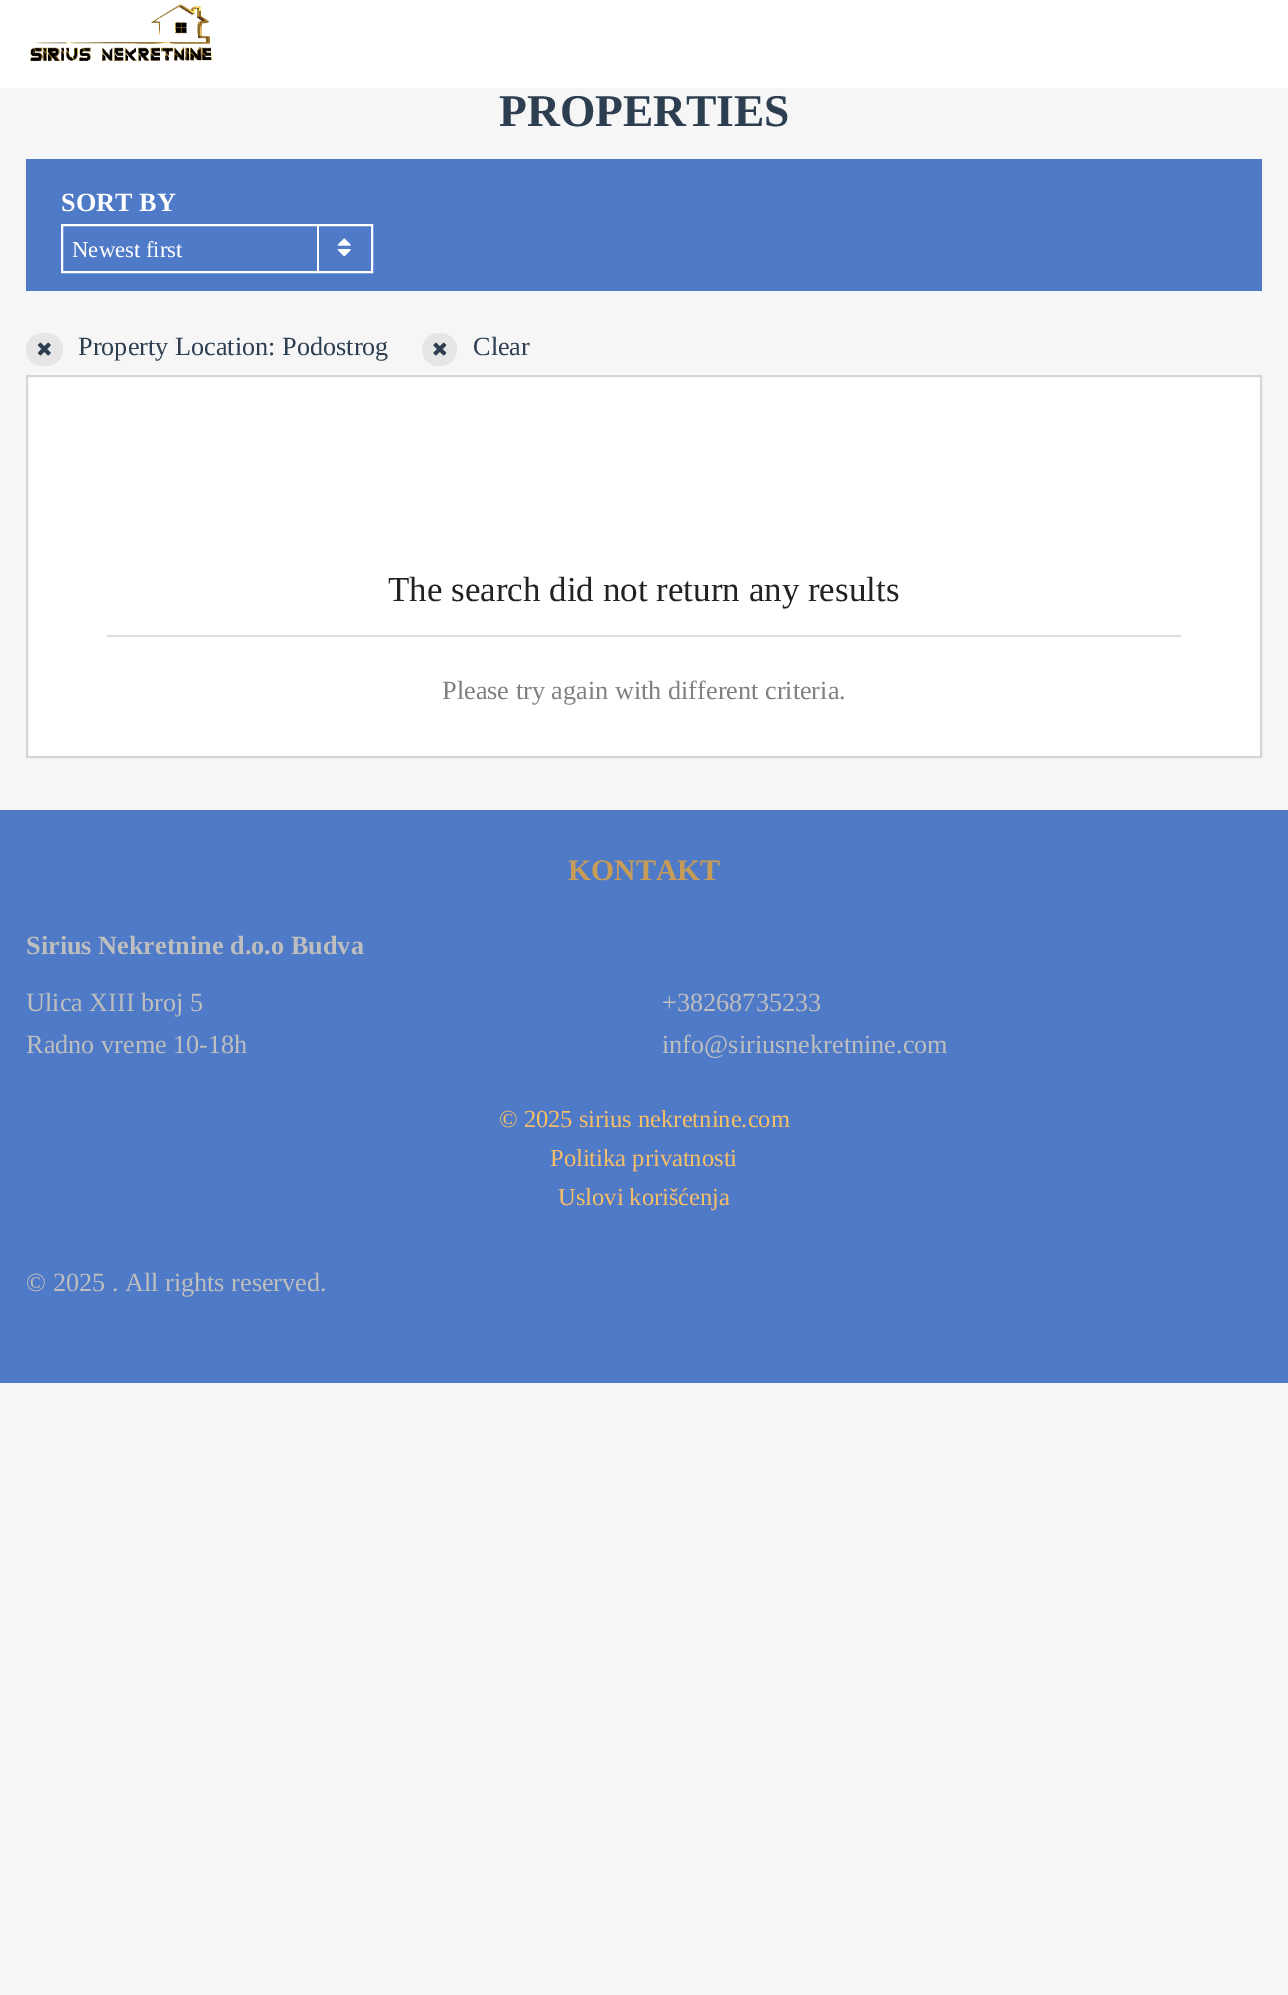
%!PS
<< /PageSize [1288 1995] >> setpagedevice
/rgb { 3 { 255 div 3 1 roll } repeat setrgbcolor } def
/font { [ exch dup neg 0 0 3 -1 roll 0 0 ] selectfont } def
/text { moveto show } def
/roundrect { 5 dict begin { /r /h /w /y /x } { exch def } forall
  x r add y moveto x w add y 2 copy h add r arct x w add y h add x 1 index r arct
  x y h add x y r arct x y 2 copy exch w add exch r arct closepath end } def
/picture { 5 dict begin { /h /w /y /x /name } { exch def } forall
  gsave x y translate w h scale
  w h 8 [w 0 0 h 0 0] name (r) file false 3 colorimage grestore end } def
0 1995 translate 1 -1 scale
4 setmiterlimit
246 246 246 rgb
0 0 1288 1995 rectfill
255 255 255 rgb
0 0 1288 88 rectfill
(img_01.rgb) 30 4 182 58 picture
79 122 200 rgb
26 159 1236 132 rectfill
255 255 255 rgb
2 setlinewidth
62 225 310 47 rectstroke
317 226 2 45 rectfill
(img_02.rgb) 337 238 14 19 picture
230 230 230 rgb
26 333 37 33 16.5 roundrect fill
(img_03.rgb) 37 342 14 14 picture
422 333 35 33 16.5 roundrect fill
(img_04.rgb) 433 342 14 14 picture
255 255 255 rgb
27 376 moveto 1234 0 rlineto 0 381 rlineto -1234 0 rlineto closepath gsave fill grestore
214 214 214 rgb
stroke
222 222 222 rgb
107 635 1074 2 rectfill
79 122 200 rgb
0 810 1288 573 rectfill
/LiberationSerif-Bold 45.5 font
44 62 80 rgb
(PROPERTIES) 499 126 text
/LiberationSerif-Bold 26.25 font
255 255 255 rgb
(SORT BY) 61 211 text
/LiberationSerif-Regular 22.75 font
(Newest first) 72 257 text
/LiberationSerif-Regular 26.25 font
44 62 80 rgb
(Property Location: Podostrog) 78 355 text
(Clear) 473 355 text
/LiberationSerif-Regular 35 font
34 34 34 rgb
(The search did not return any results) 388 601 text
/LiberationSerif-Regular 26.25 font
128 128 128 rgb
(Please try again with different criteria.) 442 699 text
/LiberationSerif-Bold 29.75 font
199 156 88 rgb
(KONTAKT) 568 880 text
/LiberationSerif-Bold 26.25 font
190 190 190 rgb
(Sirius Nekretnine d.o.o Budva) 26 954 text
/LiberationSerif-Regular 26.25 font
(Ulica XIII broj 5) 26 1011 text
(+38268735233) 662 1011 text
(Radno vreme 10-18h) 26 1053 text
(info@siriusnekretnine.com) 662 1053 text
/LiberationSerif-Regular 24.5 font
247 190 104 rgb
(© 2025 sirius nekretnine.com) 499 1127 text
(Politika privatnosti) 550 1166 text
(Uslovi korišćenja) 558 1205 text
/LiberationSerif-Regular 26.25 font
190 190 190 rgb
(© 2025 . All rights reserved.) 26 1291 text
showpage
